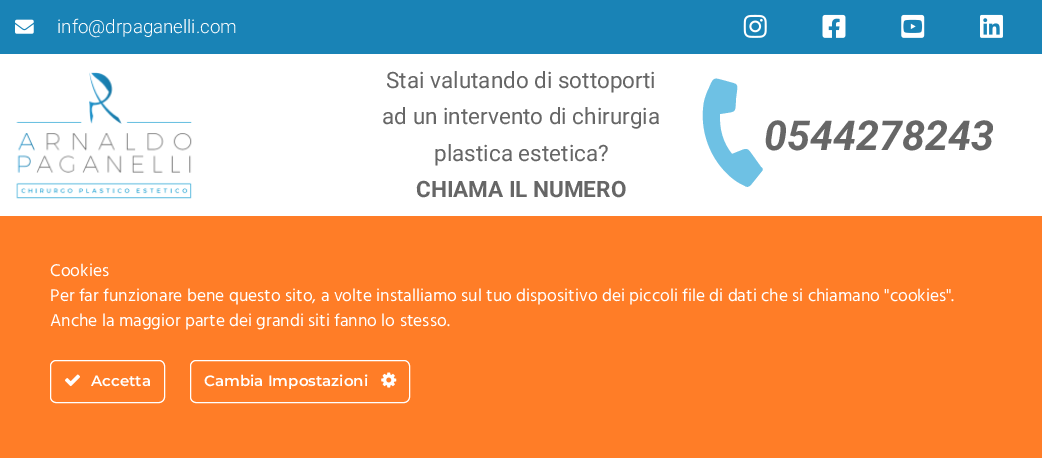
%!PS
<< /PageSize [1042 458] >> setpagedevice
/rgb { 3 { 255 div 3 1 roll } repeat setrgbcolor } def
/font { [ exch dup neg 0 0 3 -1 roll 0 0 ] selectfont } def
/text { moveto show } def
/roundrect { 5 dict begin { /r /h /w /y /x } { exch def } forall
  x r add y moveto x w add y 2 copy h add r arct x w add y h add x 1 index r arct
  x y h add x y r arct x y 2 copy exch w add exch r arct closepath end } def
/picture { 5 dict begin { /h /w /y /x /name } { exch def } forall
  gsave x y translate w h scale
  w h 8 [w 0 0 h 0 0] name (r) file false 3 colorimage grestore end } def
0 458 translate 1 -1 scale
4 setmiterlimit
255 255 255 rgb
0 0 1042 458 rectfill
25 131 182 rgb
0 0 1042 54 rectfill
(img_01.rgb) 15 19 19 15 picture
(img_02.rgb) 743 14 24 24 picture
(img_03.rgb) 822 14 24 24 picture
(img_04.rgb) 901 14 24 24 picture
(img_05.rgb) 980 14 23 24 picture
(img_06.rgb) 16 72 176 127 picture
110 193 228 rgb
761 167 moveto 2 1 2 3 1 4 rcurveto -8 10 rlineto -2 2 -5 8 -9 5 rcurveto -6 -3 -8 -4 -13 -8 rcurveto -22 -18 -33 -48 -28 -76 rcurveto 1 -5 3 -10 5 -14 rcurveto 5 -12 5 -10 17 -7 rcurveto 13 4 12 1 10 17 rcurveto -1 16 1 13 -16 16 rcurveto -1 15 3 29 12 40 rcurveto 10 -4 rlineto 5 -2 6 -1 9 3 rcurveto closepath fill
255 125 39 rgb
0 216 1042 242 rectfill
255 255 255 rgb
50.5 360.5 114 42 5.5 roundrect stroke
(img_07.rgb) 65 374 15 13 picture
190.5 360.5 219 42 5.5 roundrect stroke
(img_08.rgb) 381 372 16 16 picture
/Roboto-Light 18.75 font
(info@drpaganelli.com) 57 33 text
/Roboto-Regular 22.5 font
102 102 102 rgb
(Stai valutando di sottoporti) 386 88 text
(ad un intervento di chirurgia) 382 124 text
(plastica estetica?) 434 161 text
/Roboto-Bold 22.5 font
(CHIAMA IL NUMERO) 416 197 text
/Roboto-BoldItalic 41.25 font
(0544278243) 764 150 text
/Hind-Regular 17.5 font
255 255 255 rgb
(Cookies) 50 276 text
(Per far funzionare bene questo sito, a volte installiamo sul tuo dispositivo dei piccoli file di dati che si chiamano "cookies".) 50 301 text
(Anche la maggior parte dei grandi siti fanno lo stesso.) 50 326 text
/Montserrat-SemiBold 15 font
(Accetta) 91 386 text
(Cambia Impostazioni) 204 386 text
showpage
